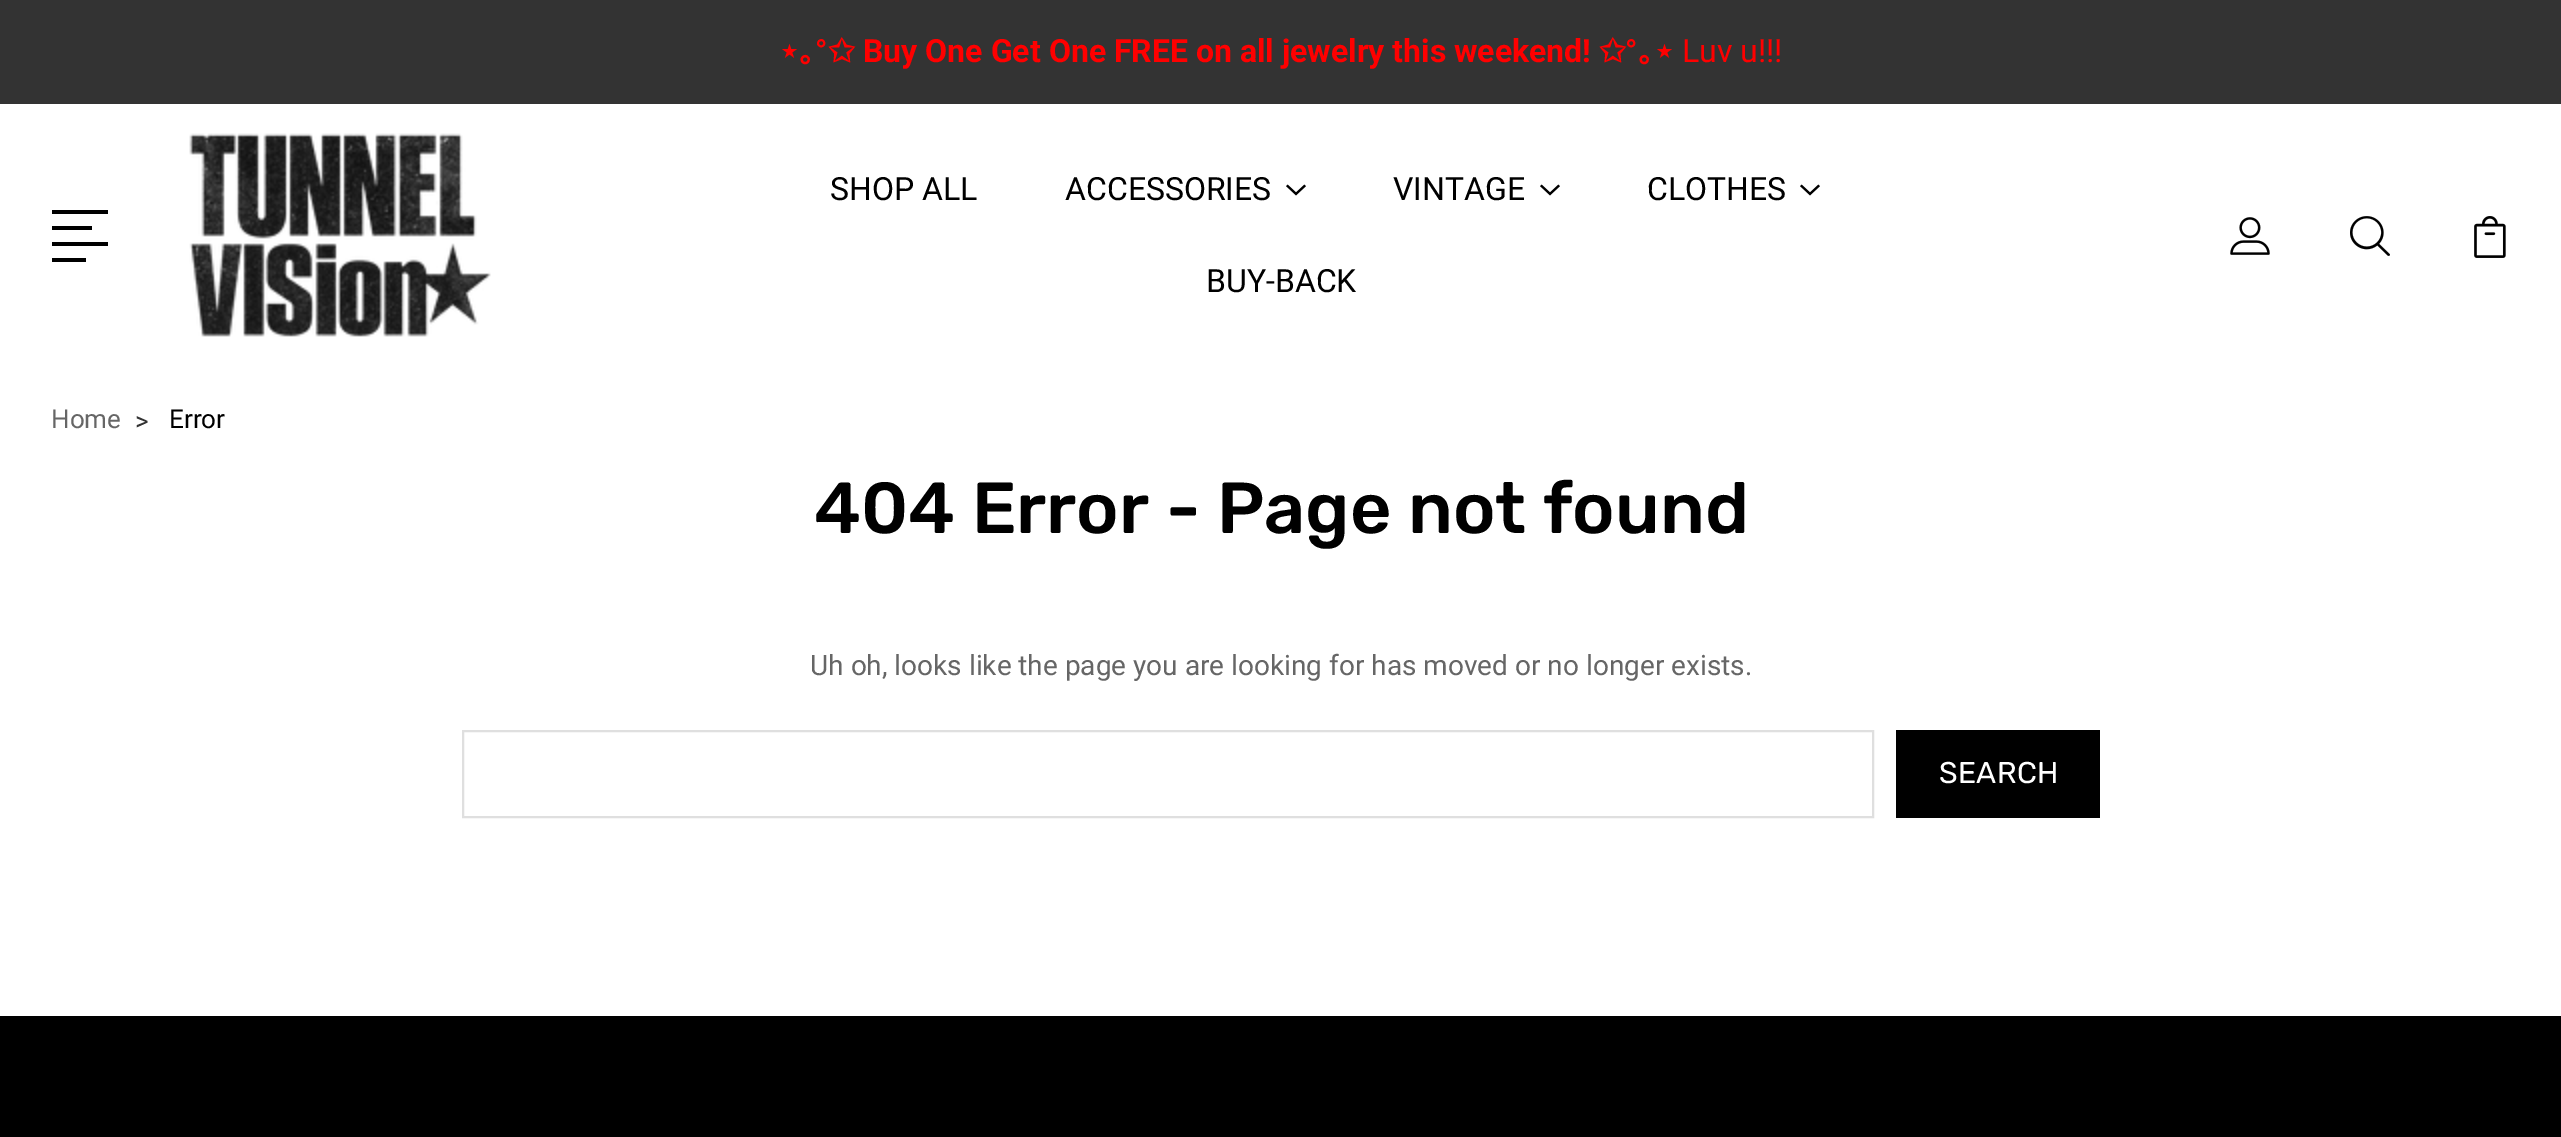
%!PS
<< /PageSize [2561 1137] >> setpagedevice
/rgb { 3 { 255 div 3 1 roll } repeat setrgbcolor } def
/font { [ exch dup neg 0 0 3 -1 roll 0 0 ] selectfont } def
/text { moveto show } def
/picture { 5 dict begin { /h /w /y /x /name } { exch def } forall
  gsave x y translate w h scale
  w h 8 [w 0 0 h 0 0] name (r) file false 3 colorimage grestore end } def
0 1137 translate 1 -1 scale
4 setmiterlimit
255 255 255 rgb
0 0 2561 1137 rectfill
51 51 51 rgb
0 0 2561 104 rectfill
0 0 0 rgb
52 210 56 4 rectfill
52 226 40 4 rectfill
52 242 56 4 rectfill
52 258 34 4 rectfill
(img_01.rgb) 189 133 302 204 picture
(img_02.rgb) 1286 184 20 12 picture
(img_02.rgb) 1540 184 20 12 picture
(img_02.rgb) 1800 184 20 12 picture
(img_03.rgb) 2230 217 40 38 picture
(img_04.rgb) 2350 216 40 40 picture
(img_05.rgb) 2474 216 32 42 picture
223 223 223 rgb
2 setlinewidth
463 731 1410 86 rectstroke
0 0 0 rgb
1896 730 204 88 rectfill
0 1016 2561 121 rectfill
/DejaVuSans-Bold 32 font
255 0 0 rgb
(⋆) 779 62 text
/Roboto-Bold 32 font
(°) 815 62 text
/DejaVuSans-Bold 32 font
(✩) 828 62 text
/Roboto-Bold 32 font
(Buy One Get One FREE on all jewelry this weekend!) 863 62 text
/DejaVuSans-Bold 32 font
(✩) 1599 62 text
/Roboto-Bold 32 font
(°) 1625 62 text
/DejaVuSans-Bold 32 font
(⋆) 1654 62 text
/Roboto-Regular 32 font
(Luv u!!!) 1682 62 text
/IPAGothic-Bold 32 font
(｡) 799 62 text
(｡) 1638 62 text
/Roboto-Regular 32 font
0 0 0 rgb
(SHOP ALL) 830 200 text
(ACCESSORIES) 1065 200 text
(VINTAGE) 1393 200 text
(CLOTHES) 1647 200 text
(BUY-BACK) 1206 292 text
/Roboto-Regular 26 font
102 102 102 rgb
(Home) 51 428 text
51 51 51 rgb
(>) 135 430 text
0 0 0 rgb
(Error) 169 428 text
/Rubik-Medium 72 font
(404 Error - Page not found) 814 533 text
/Roboto-Regular 28 font
102 102 102 rgb
(Uh oh, looks like the page you are looking for has moved or no longer exists.) 810 675 text
/Rubik-Regular 30 font
255 255 255 rgb
1939 783 moveto 0.25 0 (SEARCH) ashow
showpage
